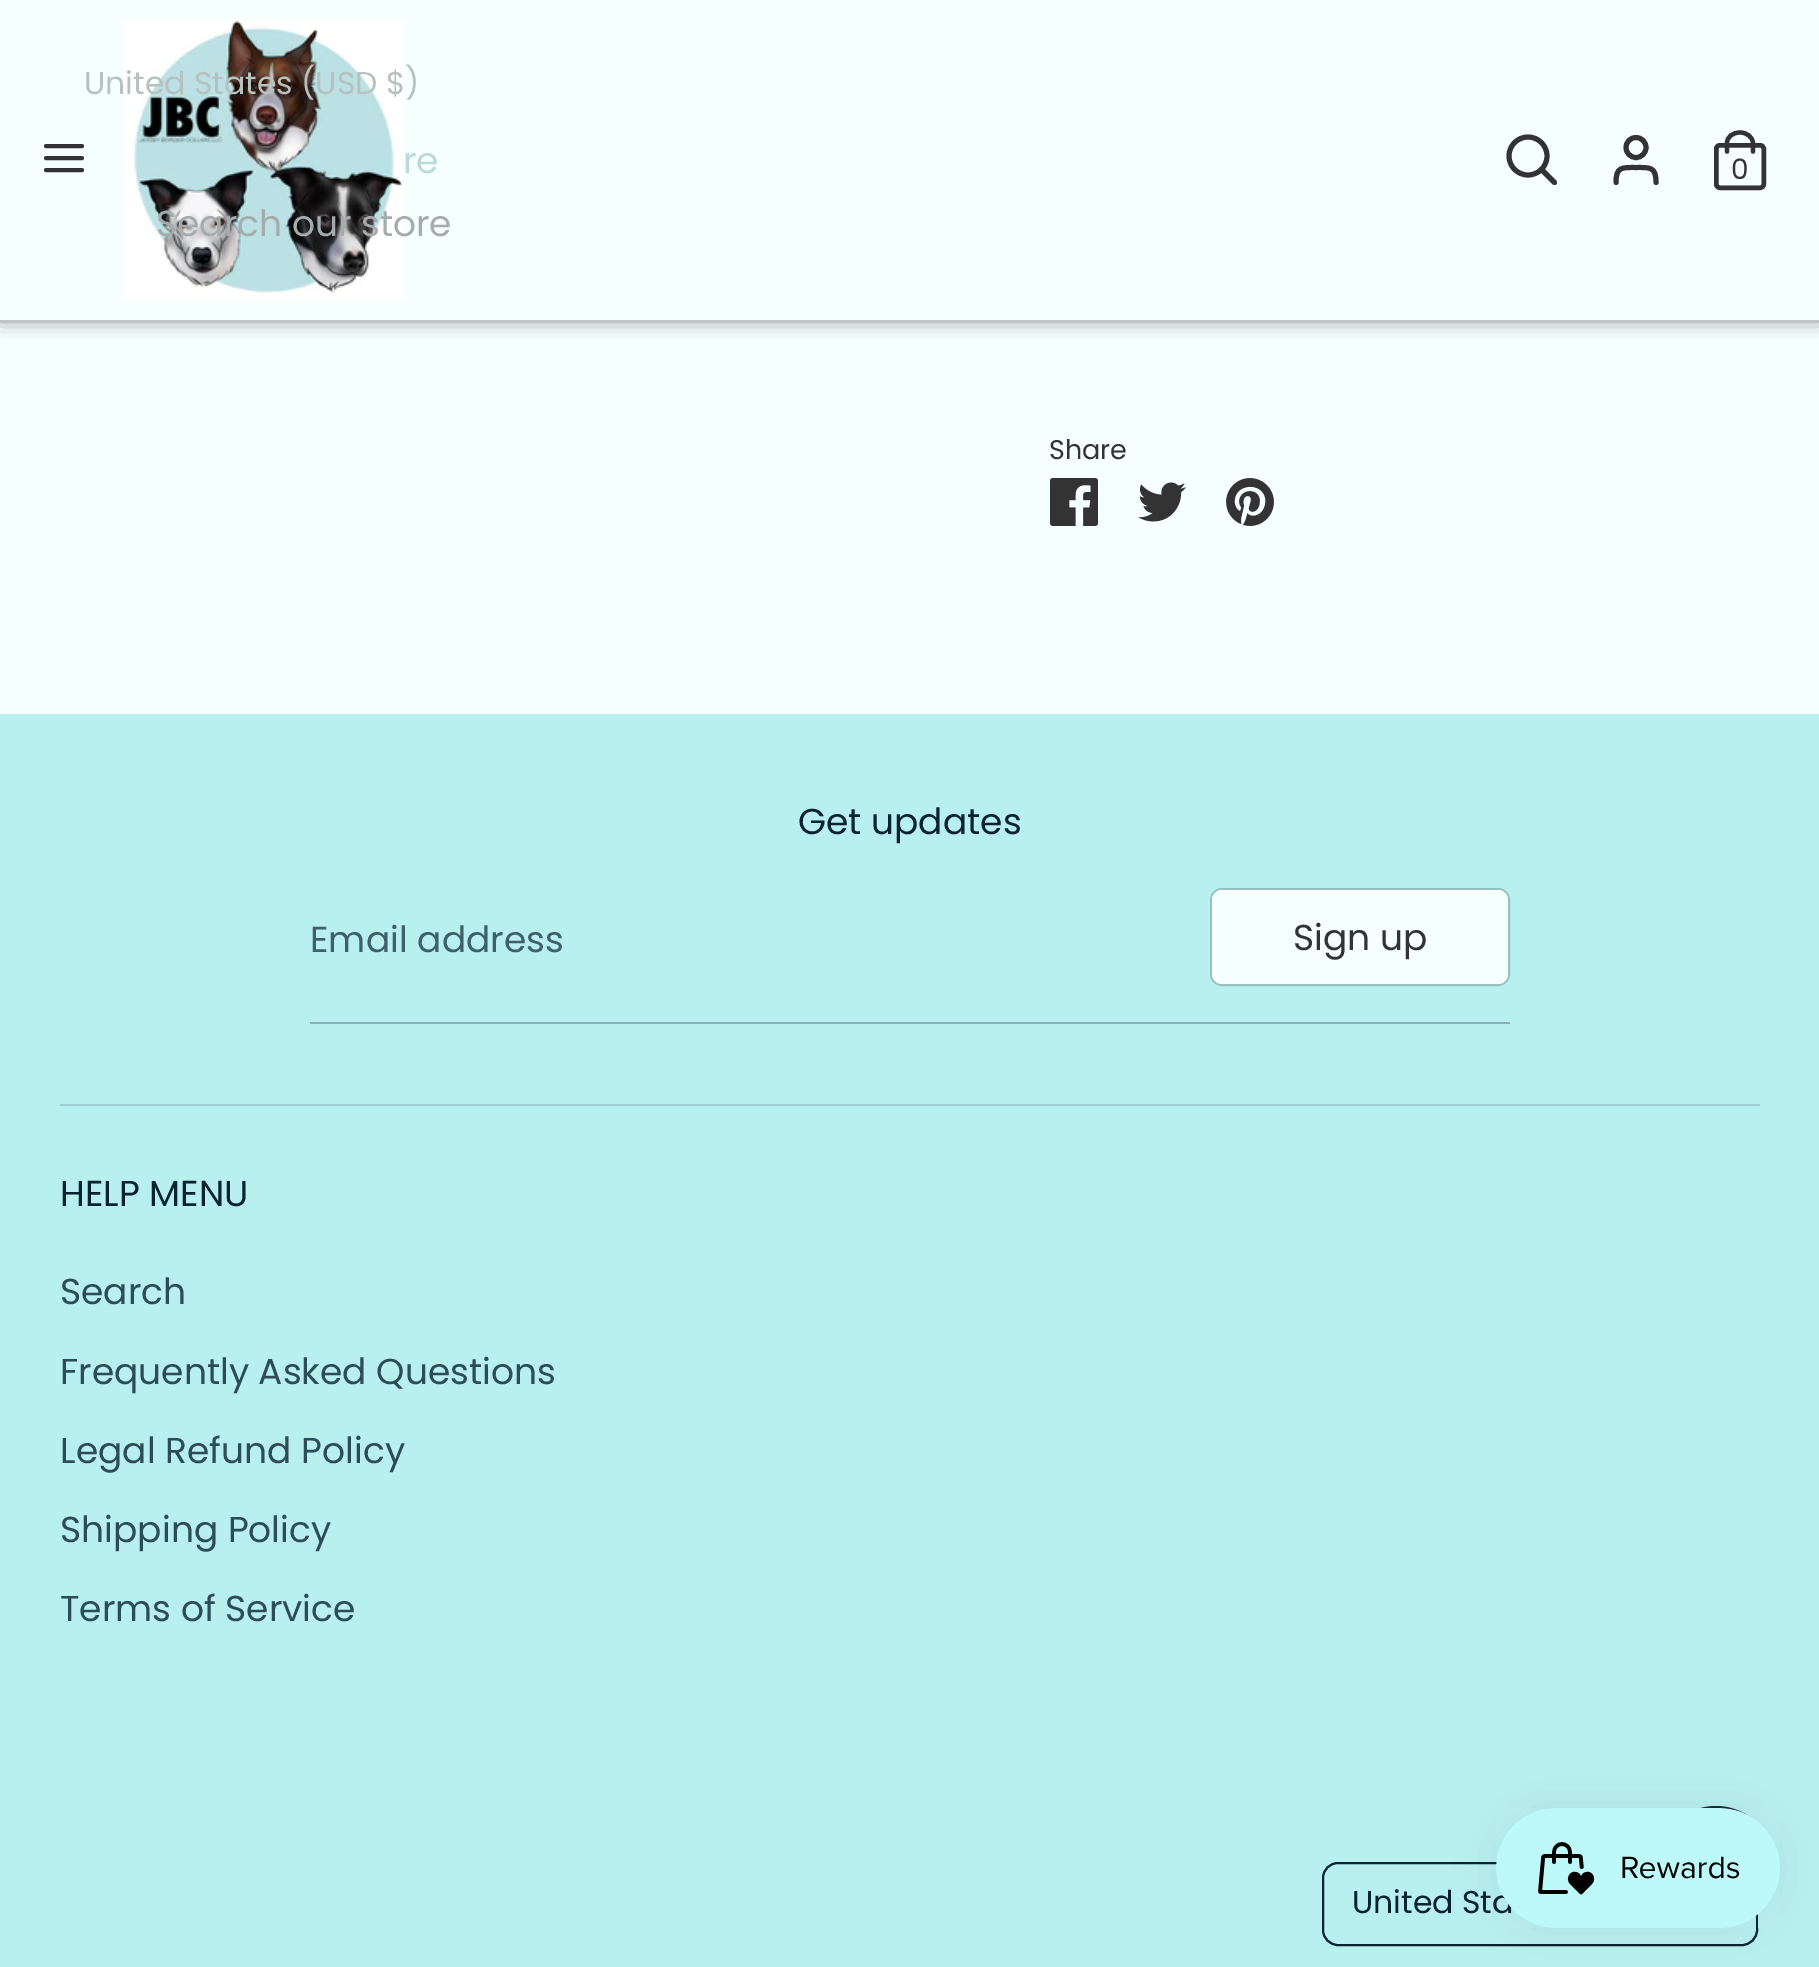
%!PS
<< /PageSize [1819 1967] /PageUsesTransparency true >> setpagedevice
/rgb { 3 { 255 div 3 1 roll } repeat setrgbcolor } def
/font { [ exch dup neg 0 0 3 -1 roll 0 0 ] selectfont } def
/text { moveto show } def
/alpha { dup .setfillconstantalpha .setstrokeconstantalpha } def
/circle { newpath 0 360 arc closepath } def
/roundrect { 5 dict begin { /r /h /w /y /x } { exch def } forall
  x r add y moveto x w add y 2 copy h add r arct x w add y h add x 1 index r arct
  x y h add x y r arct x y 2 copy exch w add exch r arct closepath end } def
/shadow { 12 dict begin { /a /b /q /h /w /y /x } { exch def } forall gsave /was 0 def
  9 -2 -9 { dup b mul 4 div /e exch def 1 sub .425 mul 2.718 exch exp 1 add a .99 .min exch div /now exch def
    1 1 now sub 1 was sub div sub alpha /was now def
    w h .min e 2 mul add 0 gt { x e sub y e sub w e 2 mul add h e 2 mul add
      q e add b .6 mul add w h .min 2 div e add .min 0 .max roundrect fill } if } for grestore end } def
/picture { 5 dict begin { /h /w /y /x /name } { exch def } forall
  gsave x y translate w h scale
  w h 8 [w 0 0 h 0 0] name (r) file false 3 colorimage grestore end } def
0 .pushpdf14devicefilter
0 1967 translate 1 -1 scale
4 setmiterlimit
244 255 254 rgb
0 0 1819 1967 rectfill
0 0 0 rgb
0 -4 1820 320 0 10 0.75 shadow
244 255 254 rgb
0 0 1819 320 rectfill
51 51 51 rgb
4 setlinewidth
1 setlinecap
46 158 moveto 36 0 rlineto 46 146 moveto 36 0 rlineto 46 170 moveto 36 0 rlineto stroke
(img_01.rgb) 124 20 280 280 picture
5 setlinewidth
0 setlinecap
1528 156 19 circle stroke
1 setlinecap
1554.5 182.5 moveto -13 -13 rlineto stroke
1656 182.5 moveto 0 -16 -6 -15 -20 -15 rcurveto -14 0 -20 -1 -20 15 rcurveto stroke
0 setlinecap
1636 147.5 10 circle stroke
4.5 setlinewidth
1716.25 145.25 47.5 42.5 3.75 roundrect stroke
4.3 setlinewidth
1 setlinecap
1727 151.5 moveto 0 -8.5 rlineto 0 -6 5.5 -10.5 13 -10.5 rcurveto 7 0 12.5 4.5 13 10.5 rcurveto 0 8.5 rlineto stroke
(img_02.rgb) 1050 478 48 48 picture
(img_03.rgb) 1138 482 48 40 picture
(img_04.rgb) 1226 478 48 48 picture
184 239 239 rgb
0 714 1819 1253 rectfill
132 178 182 rgb
310 1022 1200 2 rectfill
151 192 192 rgb
2 setlinewidth
0 setlinecap
1211 889 298 96 11 roundrect stroke
244 255 254 rgb
1212 890 296 94 10 roundrect fill
158 208 211 rgb
60 1104 1700 2 rectfill
9 35 49 rgb
1323 1863 434 82 15 roundrect stroke
32 42 54 rgb
1716 1866 60 circle fill
0 0 0 rgb
1496 1808 284 120 60 25 0.05 shadow
/Poppins-Regular 31.5 font
182 193 192 rgb
(United States \(USD $\)) 84 94 text
/Poppins-Regular 36 font
164 172 173 rgb
(Search our store) 156 236 text
188 216 217 rgb
(re) 403 173 text
/Poppins-Regular 28 font
51 51 51 rgb
(0) 1731 179 text
/Poppins-Regular 27 font
(Share) 1049 459 text
/Poppins-Regular 36 font
9 35 49 rgb
(Get updates) 798 834 text
62 96 106 rgb
(Email address) 310 952 text
51 51 51 rgb
(Sign up) 1293 950 text
9 35 49 rgb
(HELP MENU) 60 1206 text
44 76 87 rgb
(Search) 60 1304 text
(Frequently Asked Questions) 60 1384 text
(Legal Refund Policy) 60 1463 text
(Shipping Policy) 60 1542 text
(Terms of Service) 60 1621 text
/Poppins-Regular 31.5 font
9 35 49 rgb
(United Sta) 1352 1913 text
(img_05.rgb) 1496 1808 284 120 picture
.poppdf14devicefilter showpage
